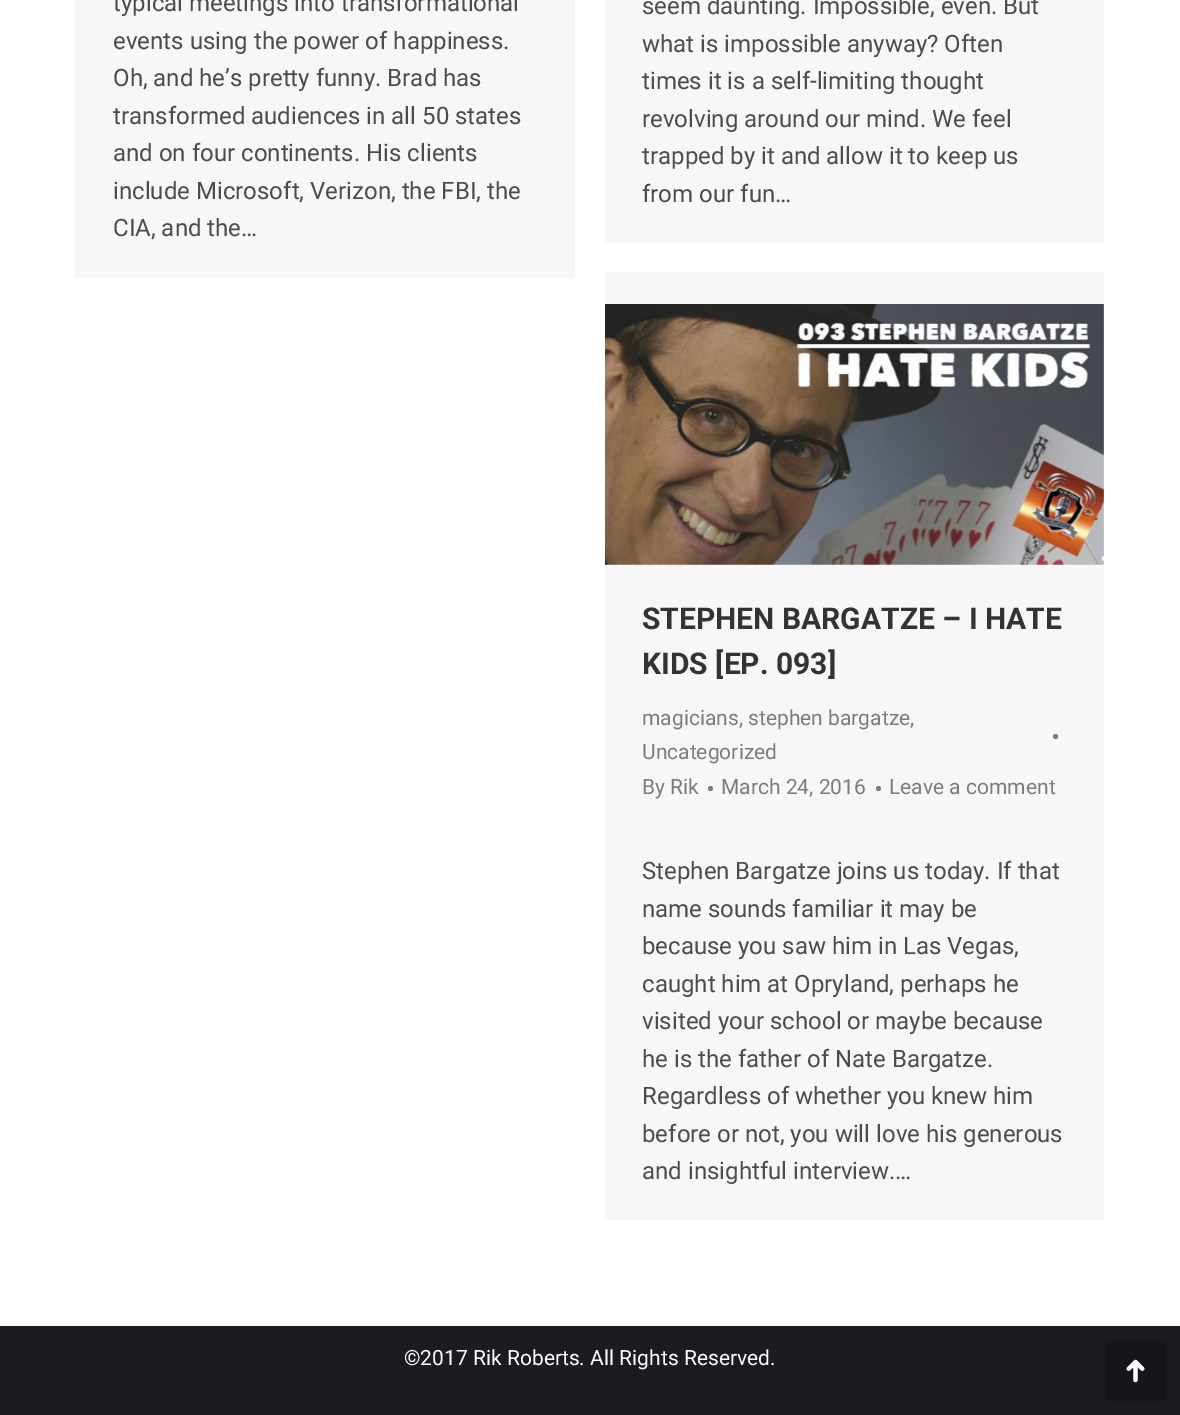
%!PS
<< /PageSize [1180 1415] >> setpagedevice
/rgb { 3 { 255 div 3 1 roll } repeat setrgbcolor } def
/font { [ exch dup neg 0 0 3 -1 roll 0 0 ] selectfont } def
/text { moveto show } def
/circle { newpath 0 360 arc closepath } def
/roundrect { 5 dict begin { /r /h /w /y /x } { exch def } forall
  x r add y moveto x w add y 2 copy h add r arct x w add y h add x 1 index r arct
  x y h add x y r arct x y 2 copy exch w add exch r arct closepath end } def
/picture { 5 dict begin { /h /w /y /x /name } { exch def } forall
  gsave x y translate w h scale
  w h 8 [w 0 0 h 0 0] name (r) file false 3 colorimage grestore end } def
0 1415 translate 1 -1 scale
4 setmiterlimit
255 255 255 rgb
0 0 1180 1415 rectfill
247 247 247 rgb
75 0 500 278 rectfill
605 0 499 243 rectfill
605 272 499 948 rectfill
(img_01.rgb) 605 304 499 261 picture
124 124 124 rgb
1055.5 736.5 2.5 circle fill
710.5 788.5 2.5 circle fill
878.5 788.5 2.5 circle fill
26 28 32 rgb
0 1326 1180 89 rectfill
21 22 26 rgb
1106 1341 60 60 1.5 roundrect fill
(img_02.rgb) 1126 1359 19 24 picture
/Roboto-Regular 24 font
76 76 76 rgb
(typical meetings into transformational) 113 11 text
(events using the power of happiness.) 113 49 text
(Oh, and he’s pretty funny. Brad has) 113 86 text
(transformed audiences in all 50 states) 113 124 text
(and on four continents. His clients) 113 161 text
(include Microsoft, Verizon, the FBI, the) 113 199 text
(CIA, and the…) 113 236 text
(seem daunting. Impossible, even. But) 642 14 text
(what is impossible anyway? Often) 642 52 text
(times it is a self-limiting thought) 642 89 text
(revolving around our mind. We feel) 642 127 text
(trapped by it and allow it to keep us) 642 164 text
(from our fun…) 642 202 text
/Roboto-Bold 30 font
51 51 51 rgb
(STEPHEN BARGATZE – I HATE) 642 629 text
(KIDS [EP. 093]) 642 674 text
/Roboto-Regular 21 font
124 124 124 rgb
(magicians, stephen bargatze,) 642 725 text
(Uncategorized) 642 759 text
(By Rik) 642 794 text
(March 24, 2016) 721 794 text
(Leave a comment) 889 794 text
/Roboto-Regular 24 font
76 76 76 rgb
(Stephen Bargatze joins us today. If that) 642 879 text
(name sounds familiar it may be) 642 917 text
(because you saw him in Las Vegas,) 642 954 text
(caught him at Opryland, perhaps he) 642 992 text
(visited your school or maybe because) 642 1029 text
(he is the father of Nate Bargatze.) 642 1067 text
(Regardless of whether you knew him) 642 1104 text
(before or not, you will love his generous) 642 1142 text
(and insightful interview.…) 642 1179 text
/Roboto-Regular 21 font
255 255 255 rgb
(©2017 Rik Roberts. All Rights Reserved.) 404 1365 text
showpage
